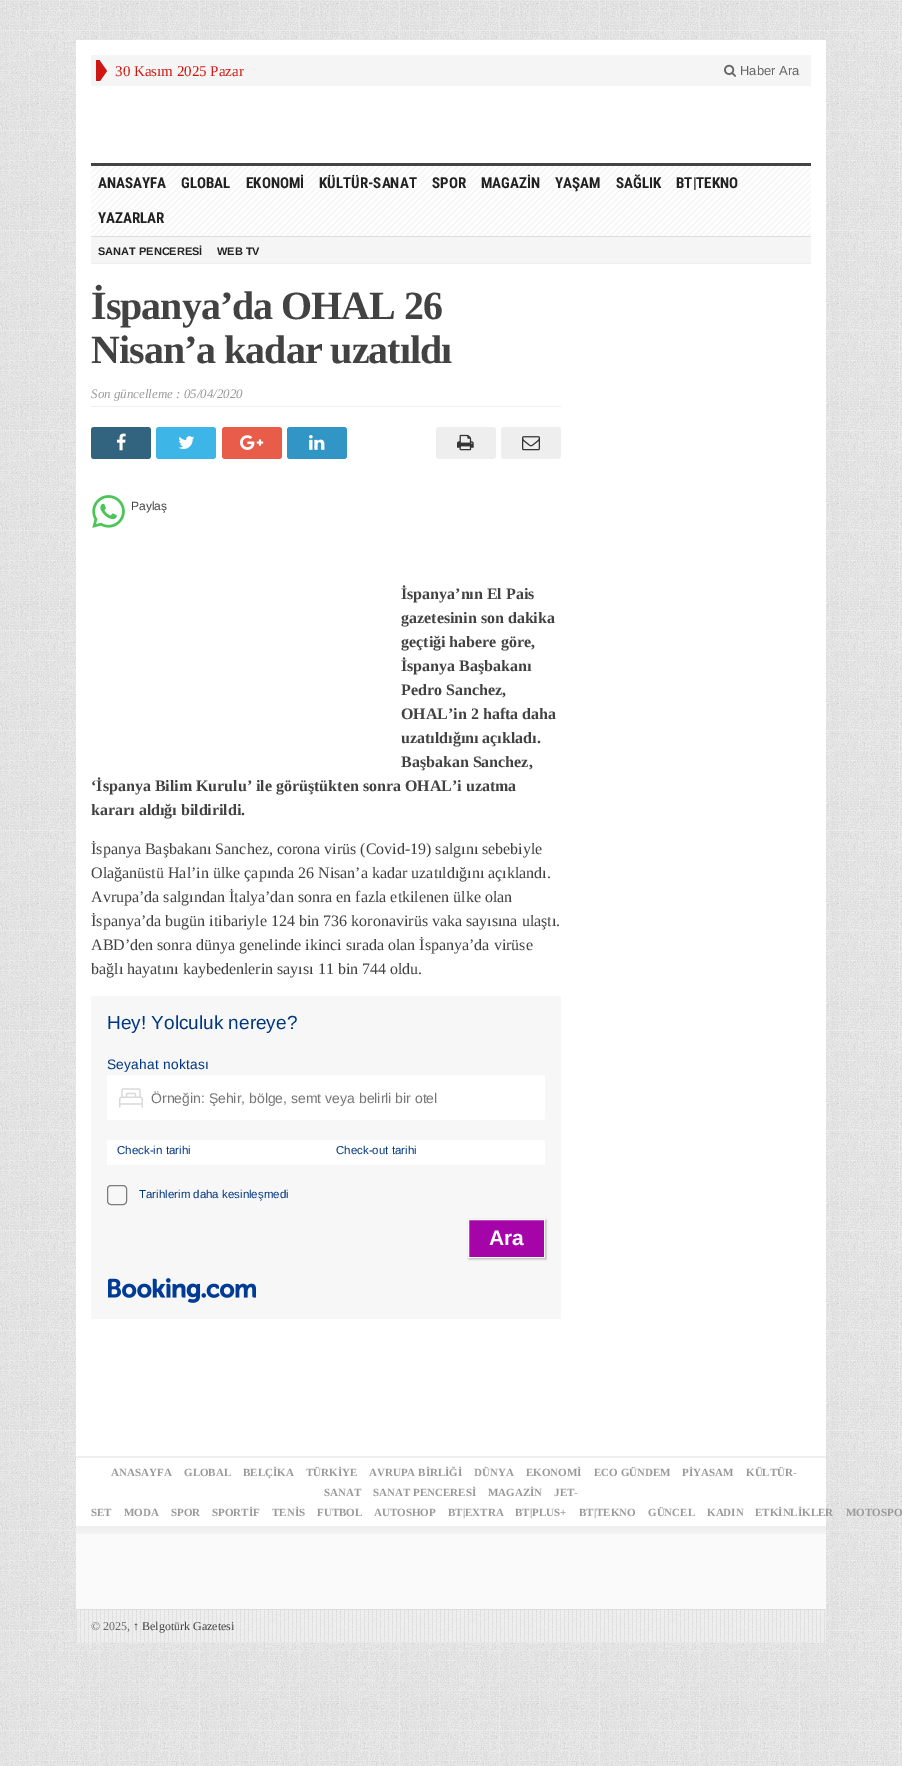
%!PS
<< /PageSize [902 1766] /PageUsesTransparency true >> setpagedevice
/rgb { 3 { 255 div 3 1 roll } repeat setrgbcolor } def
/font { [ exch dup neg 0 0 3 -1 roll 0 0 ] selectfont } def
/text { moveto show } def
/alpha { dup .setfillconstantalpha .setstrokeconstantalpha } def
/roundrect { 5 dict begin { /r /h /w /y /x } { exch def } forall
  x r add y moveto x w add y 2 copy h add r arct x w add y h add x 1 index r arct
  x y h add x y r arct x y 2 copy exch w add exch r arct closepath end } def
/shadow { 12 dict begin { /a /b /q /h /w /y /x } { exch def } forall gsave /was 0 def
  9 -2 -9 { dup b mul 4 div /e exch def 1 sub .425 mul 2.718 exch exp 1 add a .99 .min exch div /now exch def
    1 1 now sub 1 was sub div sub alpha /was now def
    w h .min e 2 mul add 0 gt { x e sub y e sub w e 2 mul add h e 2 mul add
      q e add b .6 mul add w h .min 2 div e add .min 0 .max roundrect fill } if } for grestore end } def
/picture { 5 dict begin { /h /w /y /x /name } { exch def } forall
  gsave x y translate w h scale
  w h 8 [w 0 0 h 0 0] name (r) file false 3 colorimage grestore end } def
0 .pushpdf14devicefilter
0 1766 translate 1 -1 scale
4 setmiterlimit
255 255 255 rgb
0 0 902 1766 rectfill
(img_01.rgb) 0 0 902 1766 picture
76 40 750 1486 rectfill
245 245 245 rgb
91 55 720 31 rectfill
205 23 19 rgb
96 60 4 21 rectfill
100 81 moveto 0 -20 rlineto 7 10 rlineto closepath fill
(img_02.rgb) 724 64 12 13 picture
68 68 68 rgb
91 163 720 3 rectfill
(img_03.rgb) 91 166 720 70 picture
221 221 221 rgb
91 236 720 1 rectfill
245 245 245 rgb
91 237 720 26 rectfill
239 239 239 rgb
91 263 720 1 rectfill
91 406 470 1 rectfill
51 100 127 rgb
91 427 60 32 3 roundrect fill
(img_04.rgb) 116 433 10 18 picture
61 181 230 rgb
156 427 60 32 3 roundrect fill
(img_05.rgb) 178 436 17 13 picture
234 92 74 rgb
222 427 60 32 3 roundrect fill
(img_06.rgb) 240 435 24 15 picture
49 150 198 rgb
287 427 60 32 3 roundrect fill
(img_07.rgb) 309 435 16 15 picture
238 238 238 rgb
436 427 60 32 3 roundrect fill
(img_08.rgb) 457 434 17 17 picture
501 427 60 32 3 roundrect fill
(img_09.rgb) 522 436 18 15 picture
(img_10.rgb) 92 495 33 33 picture
247 247 247 rgb
91 996 470 323 rectfill
255 255 255 rgb
107 1075 438 45 2 roundrect fill
(img_11.rgb) 119 1088 24 20 picture
107 1140 438 25 rectfill
124 124 124 rgb
107.5 1185.5 19 19 3.5 roundrect stroke
153 153 153 rgb
469 1220 77 39 0 1 1 shadow
165 5 168 rgb
468.5 1219.5 moveto 76 0 rlineto 0 38 rlineto -76 0 rlineto closepath gsave fill grestore
255 255 255 rgb
stroke
(img_12.rgb) 108 1278 148 25 picture
239 239 239 rgb
76 1456 750 2 rectfill
76 1526 750 2 rectfill
250 250 250 rgb
76 1528 750 81 rectfill
(img_13.rgb) 76 1528 750 6 picture
(img_14.rgb) 76 1610 750 33 picture
221 221 221 rgb
76 1609 750 1 rectfill
232 232 232 rgb
91 1642 720 1 rectfill
/LiberationSerif-Regular 15 font
205 23 19 rgb
(30 Kasım 2025 Pazar) 115 76 text
/LiberationSans-Regular 13 font
102 102 102 rgb
(Haber Ara) 740 75 text
/RobotoCondensed-Bold 15 font
34 34 34 rgb
(ANASAYFA) 98 188 text
(GLOBAL) 181 188 text
(EKONOMİ) 246 188 text
(KÜLTÜR-SANAT) 319 188 text
(SPOR) 432 188 text
(MAGAZİN) 481 188 text
(YAŞAM) 555 188 text
(SAĞLIK) 616 188 text
(BT|TEKNO) 676 188 text
(YAZARLAR) 98 223 text
/LiberationSans-Bold 11 font
(SANAT PENCERESİ) 98 255 text
(WEB TV) 217 255 text
/LiberationSerif-Bold 40 font
66 66 66 rgb
91 319 moveto -1 0 (İspanya’da OHAL 26) ashow
91 363 moveto -1 0 (Nisan’a kadar uzatıldı) ashow
/LiberationSerif-Italic 13 font
153 153 153 rgb
(Son güncelleme : 05/04/2020) 91 398 text
/LiberationSans-Regular 12 font
66 66 66 rgb
(Paylaş) 131 510 text
/LiberationSerif-Bold 16 font
(İspanya’nın El Pais) 401 599 text
(gazetesinin son dakika) 401 623 text
(geçtiği habere göre,) 401 647 text
(İspanya Başbakanı) 401 671 text
(Pedro Sanchez,) 401 695 text
(OHAL’in 2 hafta daha) 401 719 text
(uzatıldığını açıkladı.) 401 743 text
(Başbakan Sanchez,) 401 767 text
(‘İspanya Bilim Kurulu’ ile görüştükten sonra OHAL’i uzatma) 91 791 text
(kararı aldığı bildirildi.) 91 815 text
/LiberationSerif-Regular 16 font
(İspanya Başbakanı Sanchez, corona virüs \(Covid-19\) salgını sebebiyle) 91 854 text
(Olağanüstü Hal’in ülke çapında 26 Nisan’a kadar uzatıldığını açıklandı.) 91 878 text
(Avrupa’da salgından İtalya’dan sonra en fazla etkilenen ülke olan) 91 902 text
(İspanya’da bugün itibariyle 124 bin 736 koronavirüs vaka sayısına ulaştı.) 91 926 text
(ABD’den sonra dünya genelinde ikinci sırada olan İspanya’da virüse) 91 950 text
(bağlı hayatını kaybedenlerin sayısı 11 bin 744 oldu.) 91 974 text
/LiberationSans-Regular 19 font
0 53 128 rgb
(Hey! Yolculuk nereye?) 107 1029 text
/LiberationSans-Regular 13.75 font
107 1069 moveto 0.25 0 (Seyahat noktası) ashow
/LiberationSans-Regular 14 font
117 117 117 rgb
(Örneğin: Şehir, bölge, semt veya belirli bir otel) 151 1103 text
/LiberationSans-Regular 11.5 font
0 53 128 rgb
(Check-in tarihi) 117 1154 text
(Check-out tarihi) 336 1154 text
(Tarihlerim daha kesinleşmedi) 139 1198 text
/LiberationSans-Bold 21 font
255 255 255 rgb
(Ara) 489 1245 text
/LiberationSerif-Bold 11 font
153 153 153 rgb
(ANASAYFA) 111 1476 text
(GLOBAL) 184 1476 text
(BELÇİKA) 243 1476 text
(TÜRKİYE) 306 1476 text
(AVRUPA BİRLİĞİ) 369 1476 text
(DÜNYA) 474 1476 text
(EKONOMİ) 526 1476 text
(ECO GÜNDEM) 594 1476 text
(PİYASAM) 682 1476 text
(KÜLTÜR-) 746 1476 text
(SANAT) 324 1496 text
(SANAT PENCERESİ) 373 1496 text
(MAGAZİN) 488 1496 text
(JET-) 554 1496 text
(SET) 91 1516 text
(MODA) 124 1516 text
(SPOR) 171 1516 text
(SPORTİF) 212 1516 text
(TENİS) 272 1516 text
(FUTBOL) 317 1516 text
(AUTOSHOP) 374 1516 text
(BT|EXTRA) 448 1516 text
(BT|PLUS+) 515 1516 text
(BT|TEKNO) 579 1516 text
(GÜNCEL) 648 1516 text
(KADIN) 707 1516 text
(ETKİNLİKLER) 755 1516 text
(MOTOSPO) 846 1516 text
/LiberationSerif-Regular 12 font
102 102 102 rgb
(© 2025,) 91 1630 text
/LiberationSerif-Bold 12 font
66 66 66 rgb
(↑) 133 1630 text
/LiberationSerif-Regular 12 font
(Belgotürk Gazetesi) 142 1630 text
.poppdf14devicefilter showpage
